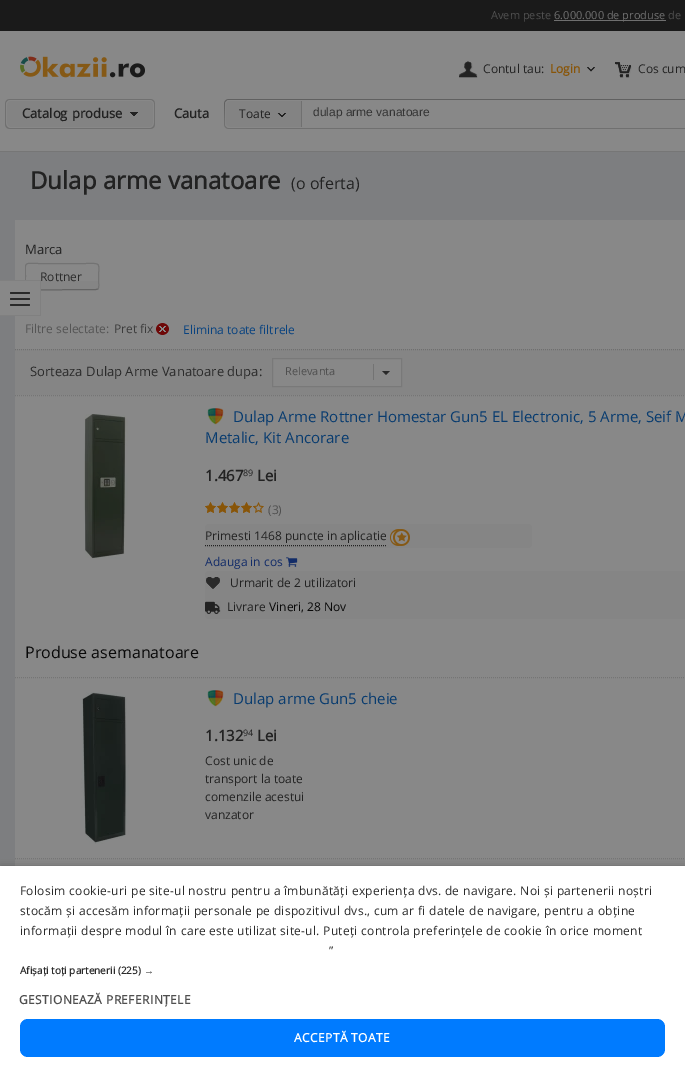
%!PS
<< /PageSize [685 1072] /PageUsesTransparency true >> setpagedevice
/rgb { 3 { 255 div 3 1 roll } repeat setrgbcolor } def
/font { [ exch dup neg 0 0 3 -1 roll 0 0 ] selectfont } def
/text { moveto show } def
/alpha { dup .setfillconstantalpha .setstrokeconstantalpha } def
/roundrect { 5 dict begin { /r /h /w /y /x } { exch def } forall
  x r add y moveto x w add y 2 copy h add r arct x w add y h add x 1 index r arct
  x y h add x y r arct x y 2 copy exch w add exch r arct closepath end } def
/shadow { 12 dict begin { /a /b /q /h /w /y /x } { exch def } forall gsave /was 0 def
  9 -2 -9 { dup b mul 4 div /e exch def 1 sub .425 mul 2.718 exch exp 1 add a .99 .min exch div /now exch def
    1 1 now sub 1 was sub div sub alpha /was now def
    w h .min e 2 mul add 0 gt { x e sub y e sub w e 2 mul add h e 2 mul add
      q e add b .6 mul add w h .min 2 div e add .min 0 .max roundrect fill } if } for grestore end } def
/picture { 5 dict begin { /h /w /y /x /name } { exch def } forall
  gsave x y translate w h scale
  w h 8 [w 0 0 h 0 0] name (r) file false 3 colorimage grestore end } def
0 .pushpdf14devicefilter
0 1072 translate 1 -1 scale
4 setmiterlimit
125 126 128 rgb
0 0 685 1072 rectfill
136 136 136 rgb
0 31 685 120 rectfill
118 118 118 rgb
0 151 685 1 rectfill
26 26 26 rgb
0 0 685 31 rectfill
111 111 111 rgb
554 20 112 1 rectfill
(img_01.rgb) 20 56 125 22 picture
(img_02.rgb) 459 61 19 17 picture
(img_03.rgb) 587 67 8 5 picture
(img_04.rgb) 615 62 17 16 picture
(img_05.rgb) 10 99 145 30 picture
(img_06.rgb) 5 99 5 30 picture
(img_07.rgb) 130 112 8 4 picture
(img_08.rgb) 224 99 77 30 picture
(img_09.rgb) 277 113 9 4 picture
112 112 112 rgb
301 101 1 26 rectfill
96 96 96 rgb
301 99 384 1 rectfill
112 112 112 rgb
301 128 384 1 rectfill
136 136 136 rgb
15 220 670 129 rectfill
133 133 133 rgb
41 281 58 8 rectfill
100 100 100 rgb
98 289 moveto -2 0.5 rlineto -11.5 0 rlineto -6.5 0 -56 1 -58 -0.5 rcurveto -0.5 0 rlineto stroke
gsave
25 240 80 55 rectclip
115 115 115 rgb
26 289 moveto -1.5 -2 -0.5 -10 -0.5 -12.5 rcurveto 0 -15.5 -2.5 -13 14 -13 rcurveto 45 0 rlineto 18 0 14 -2 14 16.5 rcurveto 0 2 1 7 -0.5 9 rcurveto stroke
grestore
136 136 136 rgb
0 281 40 34 rectfill
128 128 128 rgb
0 280 41 1 rectfill
40 280 1 36 rectfill
0 315 41 1 rectfill
41 41 41 rgb
10 298 20 2 1 roundrect fill
10 292 20 2 1 roundrect fill
10 304 20 2 1 roundrect fill
(img_10.rgb) 156 323 13 12 picture
133 133 133 rgb
15 349 670 46 rectfill
111 111 111 rgb
[1 1] 0 setdash
15 349.5 moveto 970 0 rlineto stroke
136 136 136 rgb
272.5 358.5 moveto 129 0 rlineto 0 28 rlineto -129 0 rlineto closepath gsave fill grestore
121 121 121 rgb
[] 0 setdash
stroke
115 115 115 rgb
373 364 1 16 rectfill
41 41 41 rgb
382 371 moveto 8 0 rlineto -4 4 rlineto closepath fill
136 136 136 rgb
15 395 670 471 rectfill
117 117 117 rgb
[1 1] 0 setdash
15 395.5 moveto 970 0 rlineto stroke
(img_11.rgb) 84 414 44 145 picture
(img_12.rgb) 207 408 17 17 picture
(img_13.rgb) 205 502 59 11 picture
(img_14.rgb) 205 502 50 11 picture
133 133 133 rgb
205 524 327 24 4 roundrect fill
34 34 34 rgb
205 545.5 moveto 182 0 rlineto stroke
(img_15.rgb) 390 529 20 17 picture
(img_16.rgb) 286 557 12 10 picture
133 133 133 rgb
205 571 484 48 4 roundrect fill
(img_17.rgb) 206 577 14 12 picture
(img_18.rgb) 205 601 16 13 picture
117 117 117 rgb
15 677.5 moveto 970 0 rlineto stroke
(img_19.rgb) 81 692 48 152 picture
(img_12.rgb) 207 690 17 17 picture
15 858.5 moveto 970 0 rlineto stroke
0 0 0 rgb
1 868 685 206 0 4 0.35 shadow
255 255 255 rgb
0 866 685 206 rectfill
0 123 255 rgb
20 1019 645 38 8 roundrect fill
/OpenSans-Regular 11 font
79 79 79 rgb
(Avem peste) 491 19 text
111 111 111 rgb
(6.000.000 de produse) 554 19 text
79 79 79 rgb
(de) 668 19 text
/OpenSans-Regular 12 font
34 34 34 rgb
(Contul tau:) 483 73 text
/OpenSans-Bold 12 font
136 85 9 rgb
(Login) 550 73 text
/OpenSans-Regular 12 font
34 34 34 rgb
(Cos cum) 638 73 text
/OpenSans-Bold 13 font
22 118 moveto 1 0 32 (Catalog produse) widthshow
(Cauta) 174 118 text
/OpenSans-Regular 12 font
(Toate) 239 118 text
/LiberationSans-Regular 12 font
51 51 51 rgb
(dulap arme vanatoare) 313 116 text
/OpenSans-Bold 24 font
34 34 34 rgb
(Dulap arme vanatoare) 30 189 text
/OpenSans-Regular 16 font
(\(o oferta\)) 291 189 text
/OpenSans-Regular 13 font
(Marca) 25 254 text
/OpenSans-Regular 12 font
43 43 43 rgb
(Rottner) 40 281 text
85 85 85 rgb
(Filtre selectate:) 25 333 text
60 60 60 rgb
(Pret fix) 114 333 text
9 67 128 rgb
(Elimina toate filtrele) 183 334 text
/OpenSans-Regular 13 font
43 43 43 rgb
(Sorteaza Dulap Arme Vanatoare dupa:) 30 376 text
/OpenSans-Regular 11 font
79 79 79 rgb
(Relevanta) 285 375 text
/OpenSans-Regular 15 font
9 60 111 rgb
(Dulap Arme Rottner Homestar Gun5 EL Electronic, 5 Arme, Seif M) 233 422 text
(Metalic, Kit Ancorare) 205 443 text
/OpenSans-Bold 15 font
34 34 34 rgb
(1.467) 205 481 text
/OpenSans-Regular 9 font
(89) 243 476 text
/OpenSans-Bold 15 font
(Lei) 257 481 text
/OpenSans-Regular 12 font
79 79 79 rgb
(\(3\)) 268 514 text
34 34 34 rgb
(Primesti 1468 puncte in aplicatie) 205 540 text
19 44 104 rgb
(Adauga in cos) 205 566 text
34 34 34 rgb
(Urmarit de 2 utilizatori) 230 587 text
(Livrare) 227 611 text
9 9 9 rgb
(Vineri, 28 Nov) 269 611 text
/OpenSans-Regular 16 font
(Produse asemanatoare) 25 658 text
/OpenSans-Regular 15 font
9 60 111 rgb
(Dulap arme Gun5 cheie) 233 704 text
/OpenSans-Bold 15 font
34 34 34 rgb
(1.132) 205 741 text
/OpenSans-Regular 9 font
(94) 243 736 text
/OpenSans-Bold 15 font
(Lei) 257 741 text
/OpenSans-Regular 12 font
(Cost unic de) 205 765 text
(transport la toate) 205 783 text
(comenzile acestui) 205 801 text
(vanzator) 205 819 text
43 43 43 rgb
20 895 moveto 0.3 0 (Folosim cookie-uri pe site-ul nostru pentru a îmbunătăți experiența dvs. de navigare. Noi și partenerii noștri) ashow
20 915 moveto 0.3 0 (stocăm și accesăm informații personale pe dispozitivul dvs., cum ar fi datele de navigare, pentru a obține) ashow
20 935 moveto 0.3 0 (informații despre modul în care este utilizat site-ul. Puteți controla preferințele de cookie în orice moment) ashow
329 955 moveto 0.3 0 (”) ashow
/OpenSans-Bold 10 font
(Afișați toți partenerii \(225\)) 20 974 text
/LiberationSans-Bold 10 font
(→) 144 974 text
/OpenSans-Bold 12 font
79 79 79 rgb
19 1004 moveto 0.4 0 (GESTIONEAZĂ PREFERINȚELE) ashow
255 255 255 rgb
294 1042 moveto 0.4 0 (ACCEPTĂ TOATE) ashow
.poppdf14devicefilter showpage
